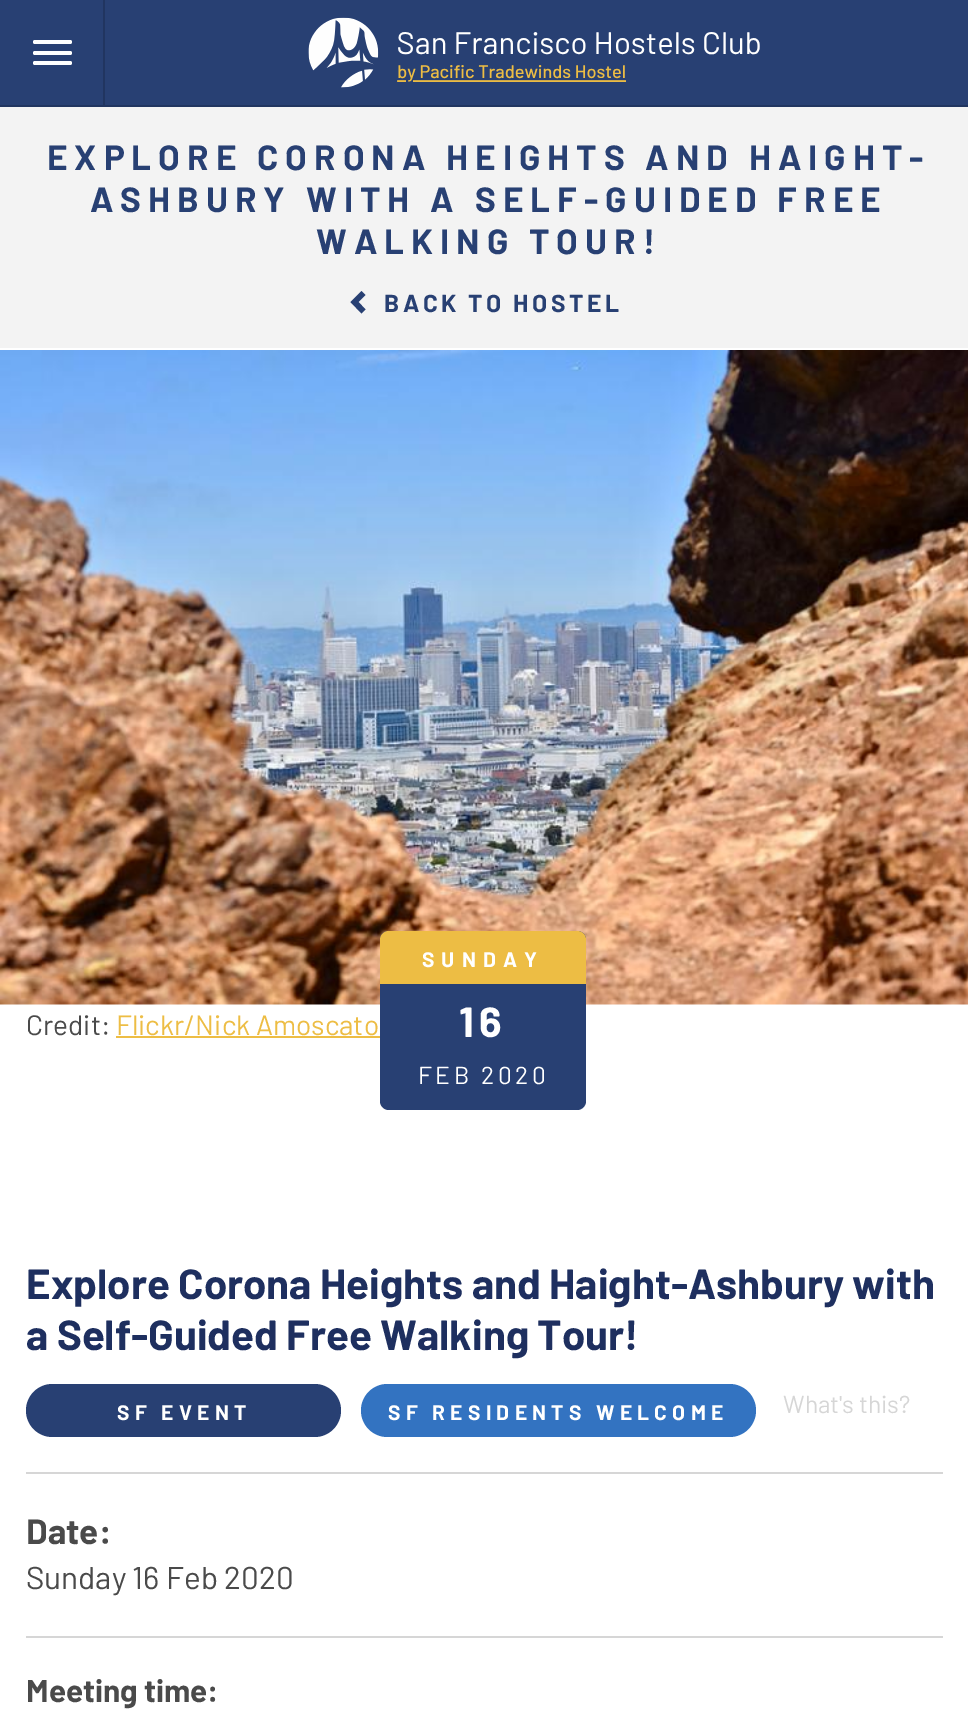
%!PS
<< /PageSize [968 1711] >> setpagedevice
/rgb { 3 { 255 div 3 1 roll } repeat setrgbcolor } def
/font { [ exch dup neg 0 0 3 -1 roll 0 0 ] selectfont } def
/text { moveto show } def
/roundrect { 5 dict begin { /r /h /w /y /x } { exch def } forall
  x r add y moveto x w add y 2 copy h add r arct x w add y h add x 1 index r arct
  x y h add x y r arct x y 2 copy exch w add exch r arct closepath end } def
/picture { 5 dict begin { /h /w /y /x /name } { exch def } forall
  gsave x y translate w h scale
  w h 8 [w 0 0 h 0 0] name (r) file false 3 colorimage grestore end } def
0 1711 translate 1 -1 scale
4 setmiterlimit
255 255 255 rgb
0 0 968 1711 rectfill
40 64 115 rgb
0 0 968 105 rectfill
33 53 96 rgb
0 105 968 2 rectfill
103 0 2 105 rectfill
255 255 255 rgb
33 40 39 4 2 roundrect fill
33 51 39 4 2 roundrect fill
33 61 39 4 2 roundrect fill
(img_01.rgb) 308 17 452 71 picture
243 243 243 rgb
0 107 968 241 rectfill
40 64 115 rgb
365.5 295 moveto -7 7 rlineto 7 7.5 rlineto -4 4 rlineto -11 -11.5 rlineto 11 -11 rlineto closepath fill
(img_02.rgb) 0 350 968 655 picture
237 189 68 rgb
116 1036 264 2 rectfill
40 64 115 rgb
380 931 206 179 9 roundrect fill
237 189 68 rgb
389 931 moveto 188 0 rlineto 5 0 9 4 9 9 rcurveto 0 44 rlineto -206 0 rlineto 0 -44 rlineto 0 -5 4 -9 9 -9 rcurveto closepath fill
214 214 214 rgb
26 1472 917 2 rectfill
40 64 115 rgb
26 1384 315 53 26.5 roundrect fill
51 115 193 rgb
361 1384 395 53 26.5 roundrect fill
214 214 214 rgb
26 1636 917 2 rectfill
/Barlow-Bold 35 font
40 64 115 rgb
47 170 moveto 7 0 (EXPLORE CORONA HEIGHTS AND HAIGHT-) ashow
90 212 moveto 7 0 (ASHBURY WITH A SELF-GUIDED FREE) ashow
316 254 moveto 7 0 (WALKING TOUR!) ashow
/Barlow-Bold 24.5 font
384 312 moveto 3.5 0 (BACK TO HOSTEL) ashow
/Barlow-Regular 28 font
74 74 74 rgb
(Credit:) 26 1035 text
237 189 68 rgb
(Flickr/Nick Amoscato) 116 1035 text
/Barlow-Bold 21 font
255 255 255 rgb
422 967 moveto 7 0 (SUNDAY) ashow
/Barlow-Bold 42 font
459 1037 moveto 5.25 0 (16) ashow
/Barlow-Regular 24.5 font
418 1084 moveto 3.5 0 (FEB 2020) ashow
/Barlow-Bold 42 font
30 47 95 rgb
(Explore Corona Heights and Haight-Ashbury with) 26 1299 text
(a Self-Guided Free Walking Tour!) 26 1350 text
/Barlow-Bold 21 font
255 255 255 rgb
117 1420 moveto 5.25 0 (SF EVENT) ashow
388 1420 moveto 5.25 0 (SF RESIDENTS WELCOME) ashow
/Barlow-Regular 24.5 font
214 214 214 rgb
(What's this?) 783 1413 text
/Barlow-Bold 35 font
74 74 74 rgb
(Date:) 26 1544 text
/Barlow-Regular 31.5 font
(Sunday 16 Feb 2020) 26 1589 text
/Barlow-Bold 31.5 font
(Meeting time:) 26 1702 text
showpage
